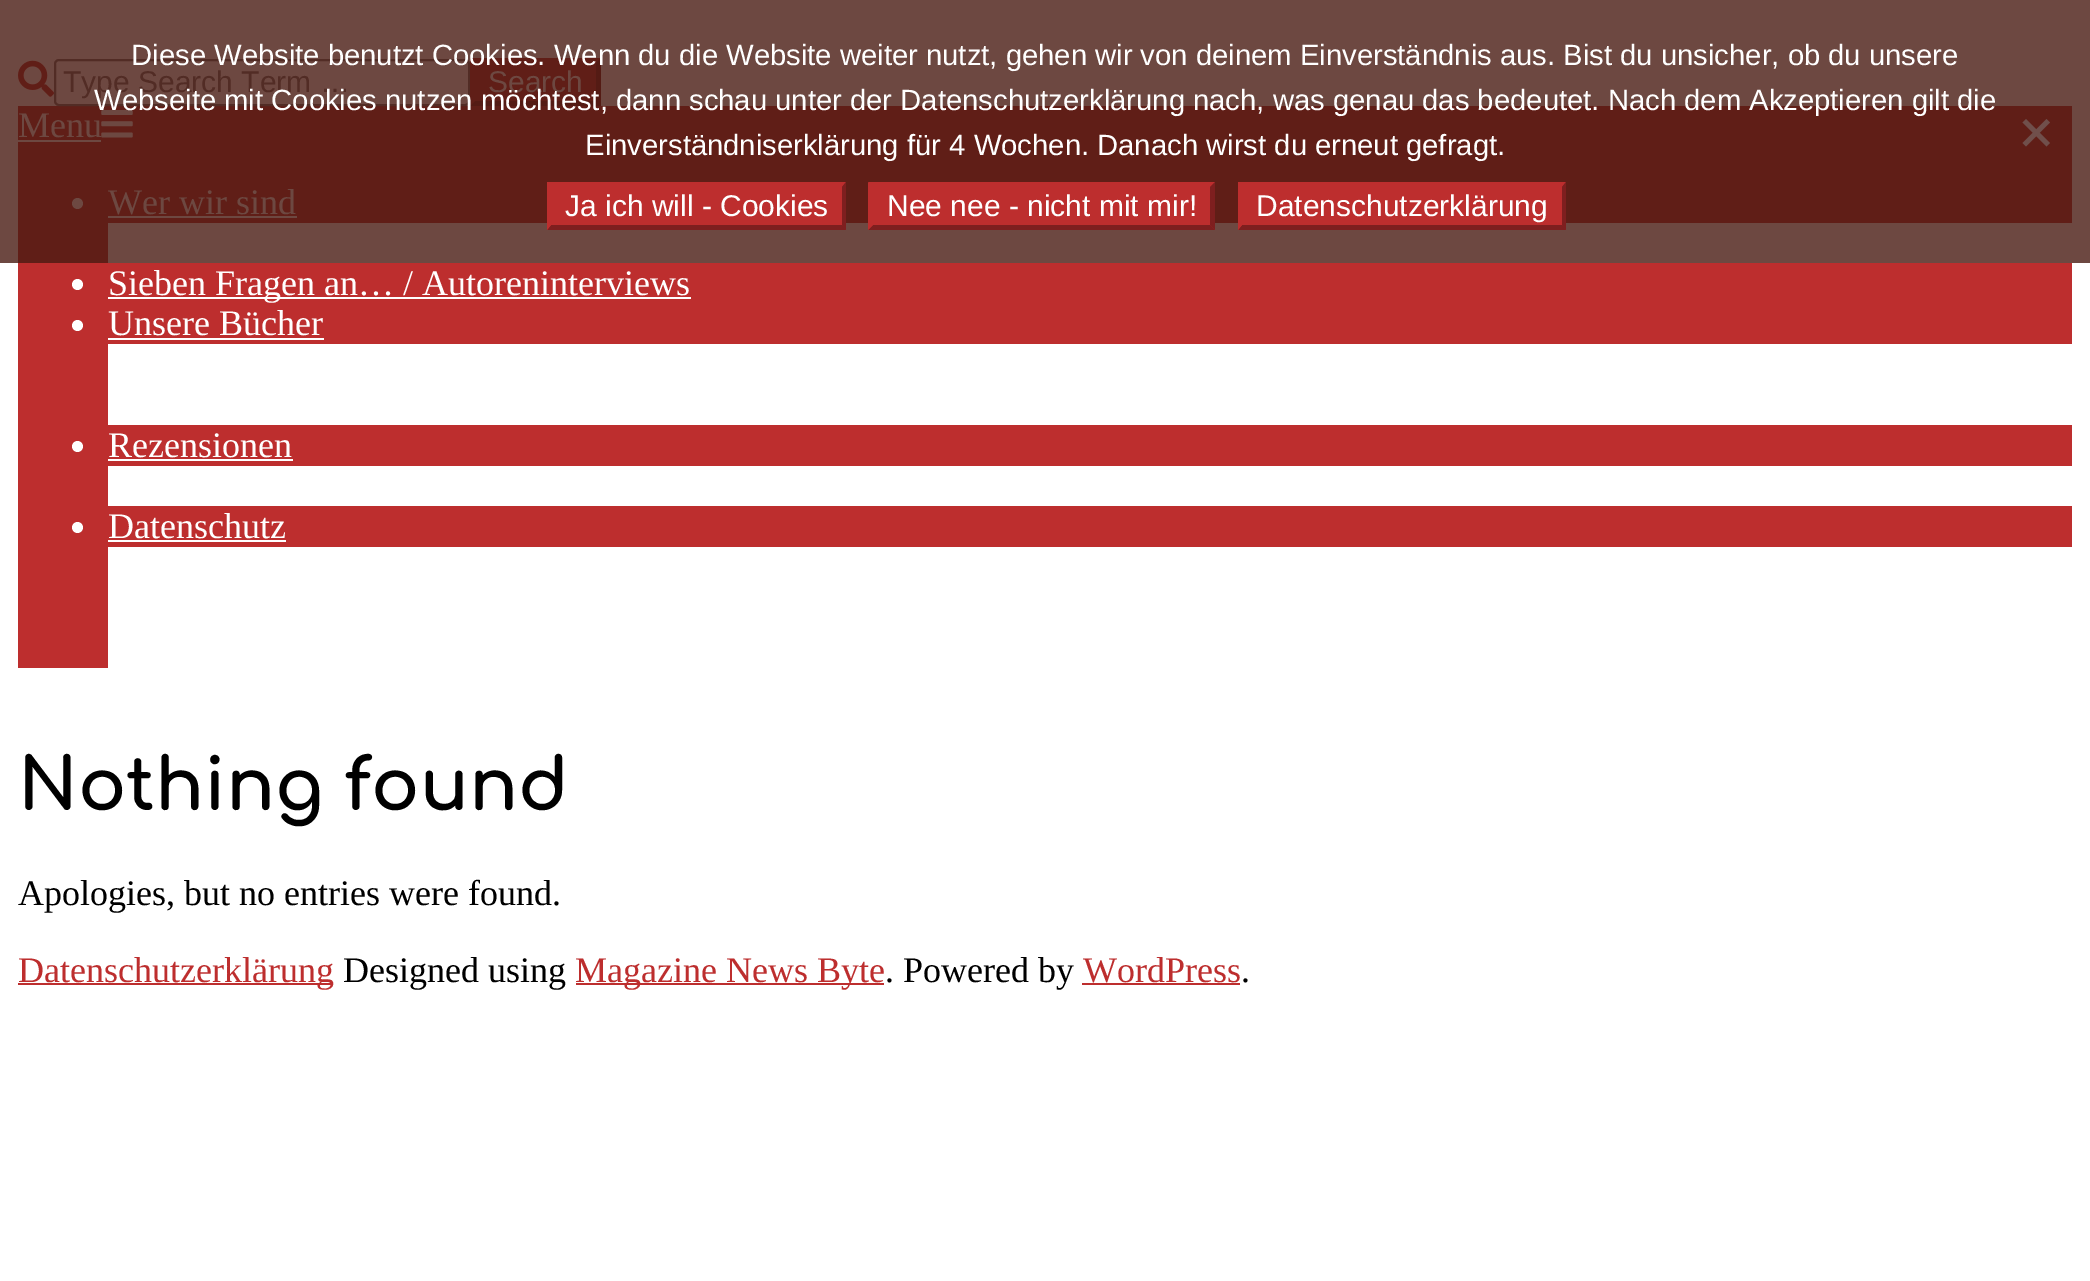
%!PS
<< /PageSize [2090 1281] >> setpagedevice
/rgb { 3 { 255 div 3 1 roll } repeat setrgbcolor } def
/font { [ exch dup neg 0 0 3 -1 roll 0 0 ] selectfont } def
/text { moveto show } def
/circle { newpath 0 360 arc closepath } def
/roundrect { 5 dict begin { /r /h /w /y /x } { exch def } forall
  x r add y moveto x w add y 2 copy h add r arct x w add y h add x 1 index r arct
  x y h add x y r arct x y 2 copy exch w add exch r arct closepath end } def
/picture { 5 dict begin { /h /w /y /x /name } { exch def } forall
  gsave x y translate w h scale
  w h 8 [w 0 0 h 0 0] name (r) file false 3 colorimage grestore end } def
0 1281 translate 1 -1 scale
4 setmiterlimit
255 255 255 rgb
0 0 2090 1281 rectfill
109 72 65 rgb
0 0 2090 263 rectfill
96 30 23 rgb
18 106 2054 157 rectfill
112 79 75 rgb
2046.5 119 moveto 3.5 3.5 rlineto -24 24 rlineto -3.5 -3.5 rlineto closepath fill
2022.5 122.5 moveto 3.5 -3.5 rlineto 24 24 rlineto -3.5 3.5 rlineto closepath fill
109 72 65 rgb
108 223 1964 40 rectfill
189 46 46 rgb
547 182 299 48 rectfill
126 31 31 rgb
846 182 moveto 0 48 rlineto -4 -5 rlineto 0 -38 rlineto closepath fill
846 230 moveto -299 0 rlineto 4 -5 rlineto 291 0 rlineto closepath fill
189 46 46 rgb
547 230 moveto 0 -48 rlineto 4 5 rlineto 0 38 rlineto closepath fill
869 182 346 48 rectfill
868 182 moveto 347 0 rlineto -5 5 rlineto -337 0 rlineto closepath fill
126 31 31 rgb
1215 182 moveto 0 48 rlineto -5 -5 rlineto 0 -38 rlineto closepath fill
1215 230 moveto -347 0 rlineto 5 -5 rlineto 337 0 rlineto closepath fill
189 46 46 rgb
868 230 moveto 0 -48 rlineto 5 5 rlineto 0 38 rlineto closepath fill
1238 182 328 48 rectfill
126 31 31 rgb
1566 182 moveto 0 48 rlineto -4 -5 rlineto 0 -38 rlineto closepath fill
1566 230 moveto -328 0 rlineto 4 -5 rlineto 320 0 rlineto closepath fill
189 46 46 rgb
1238 230 moveto 0 -48 rlineto 4 5 rlineto 0 38 rlineto closepath fill
(img_01.rgb) 18 60 36 37 picture
82 44 37 rgb
2 setlinewidth
55 60 414 45 4 roundrect stroke
96 30 23 rgb
470 59 131 47 rectfill
470 58 moveto 131 0 rlineto -5 5 rlineto -121 0 rlineto closepath fill
84 27 20 rgb
601 58 moveto 0 48 rlineto -5 -5 rlineto 0 -38 rlineto closepath fill
601 106 moveto -131 0 rlineto 5 -5 rlineto 121 0 rlineto closepath fill
96 30 23 rgb
470 106 moveto 0 -48 rlineto 5 5 rlineto 0 38 rlineto closepath fill
189 46 46 rgb
18 263 2054 405 rectfill
109 72 65 rgb
18 140 83 2 rectfill
77.5 203.5 5.5 circle fill
108 216 189 2 rectfill
255 255 255 rgb
77.5 284.5 5.5 circle fill
108 297 583 2 rectfill
77.5 325.5 5.5 circle fill
108 338 216 2 rectfill
108 344 1964 81 rectfill
77.5 446.5 5.5 circle fill
108 459 185 2 rectfill
108 466 1964 40 rectfill
77.5 527.5 5.5 circle fill
108 540 178 2 rectfill
108 547 1964 121 rectfill
189 46 46 rgb
18 983 315 2 rectfill
576 983 308 2 rectfill
1082 983 158 2 rectfill
/LiberationSans-Regular 29.25 font
255 255 255 rgb
(Diese Website benutzt Cookies. Wenn du die Website weiter nutzt, gehen wir von deinem Einverständnis aus. Bist du unsicher, ob du unsere) 131 65 text
(Einverständniserklärung für 4 Wochen. Danach wirst du erneut gefragt.) 585 155 text
/LiberationSans-Regular 30 font
(Ja ich will - Cookies) 565 216 text
(Nee nee - nicht mit mir!) 887 216 text
(Datenschutzerklärung) 1256 216 text
82 44 37 rgb
(Type Search Term …) 63 92 text
109 72 65 rgb
(Search) 488 92 text
/LiberationSerif-Regular 36 font
(Menu) 18 137 text
(img_02.rgb) 101 110 32 28 picture
/LiberationSans-Regular 29.25 font
255 255 255 rgb
(Webseite mit Cookies nutzen möchtest, dann schau unter der Datenschutzerklärung nach, was genau das bedeutet. Nach dem Akzeptieren gilt die) 94 110 text
/LiberationSerif-Regular 36 font
109 72 65 rgb
(Wer wir sind) 108 214 text
255 255 255 rgb
(Sieben Fragen an… / Autoreninterviews) 108 295 text
(Unsere Bücher) 108 335 text
(Rezensionen) 108 457 text
(Datenschutz) 108 538 text
/Comfortaa-Bold 72 font
0 0 0 rgb
(Nothing found) 18 810 text
/LiberationSerif-Regular 36 font
(Apologies, but no entries were found.) 18 905 text
189 46 46 rgb
(Datenschutzerklärung) 18 982 text
0 0 0 rgb
(Designed using) 343 982 text
189 46 46 rgb
(Magazine News Byte) 575 982 text
0 0 0 rgb
(. Powered by) 885 982 text
189 46 46 rgb
(WordPress) 1083 982 text
0 0 0 rgb
(.) 1241 982 text
showpage
